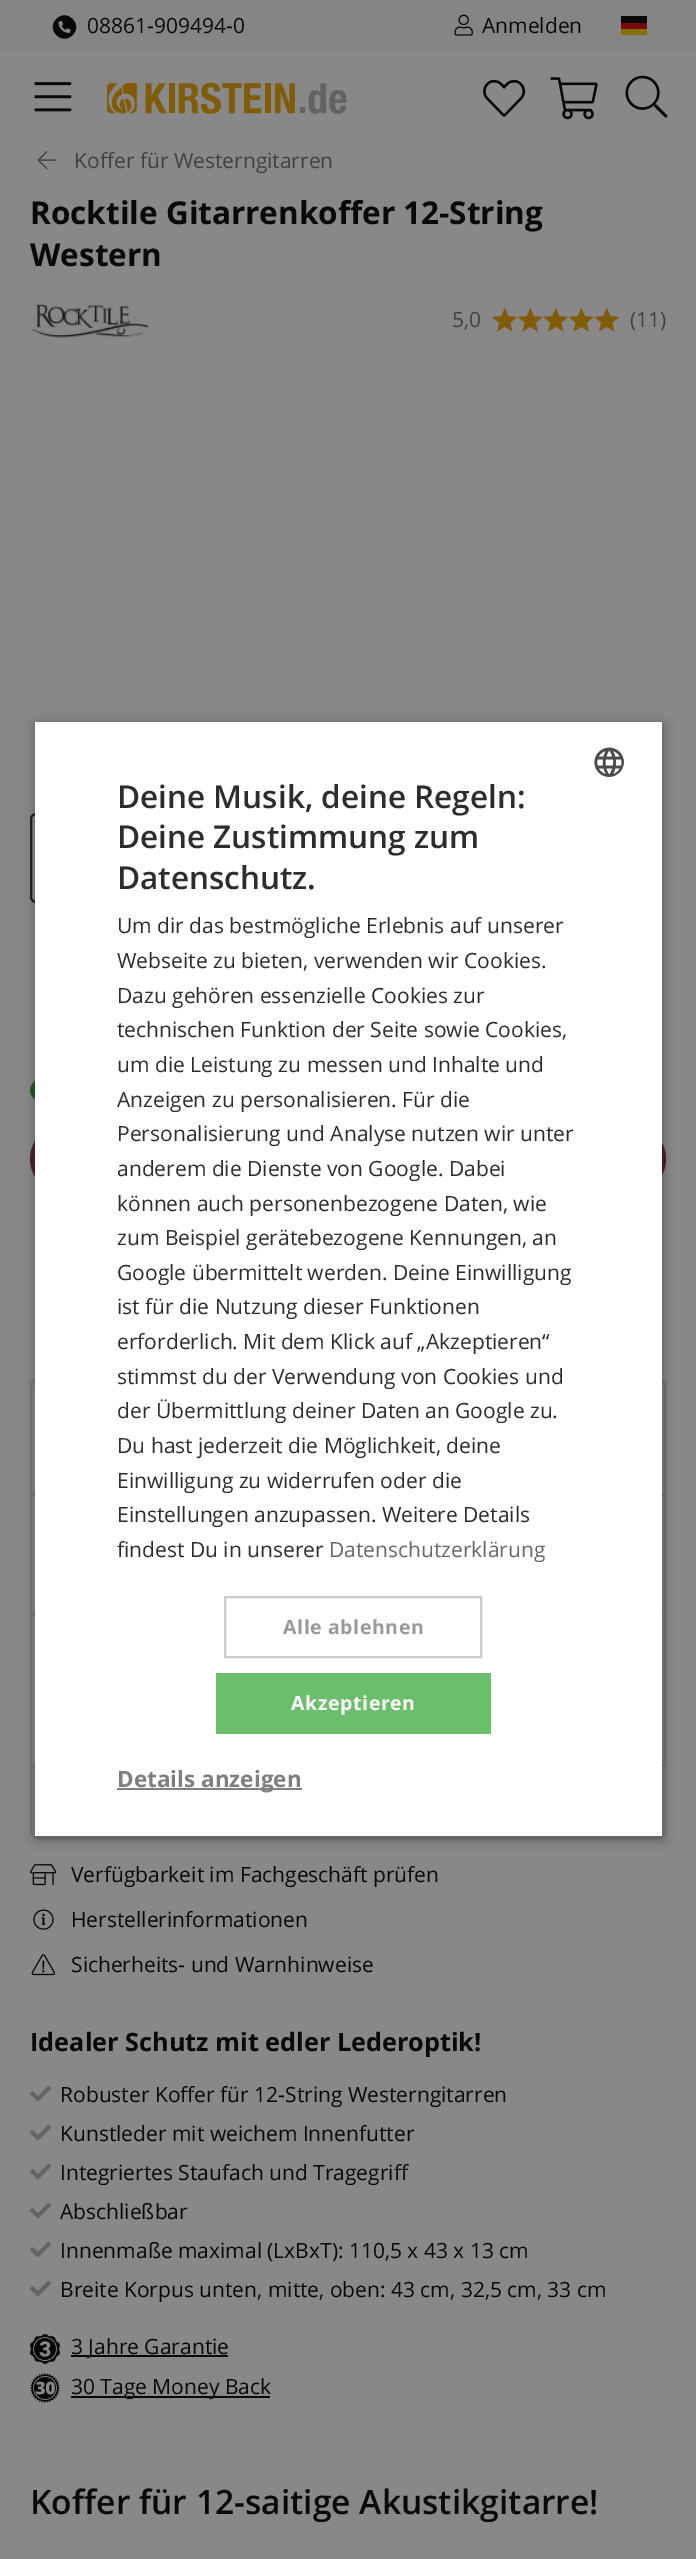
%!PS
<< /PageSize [696 2559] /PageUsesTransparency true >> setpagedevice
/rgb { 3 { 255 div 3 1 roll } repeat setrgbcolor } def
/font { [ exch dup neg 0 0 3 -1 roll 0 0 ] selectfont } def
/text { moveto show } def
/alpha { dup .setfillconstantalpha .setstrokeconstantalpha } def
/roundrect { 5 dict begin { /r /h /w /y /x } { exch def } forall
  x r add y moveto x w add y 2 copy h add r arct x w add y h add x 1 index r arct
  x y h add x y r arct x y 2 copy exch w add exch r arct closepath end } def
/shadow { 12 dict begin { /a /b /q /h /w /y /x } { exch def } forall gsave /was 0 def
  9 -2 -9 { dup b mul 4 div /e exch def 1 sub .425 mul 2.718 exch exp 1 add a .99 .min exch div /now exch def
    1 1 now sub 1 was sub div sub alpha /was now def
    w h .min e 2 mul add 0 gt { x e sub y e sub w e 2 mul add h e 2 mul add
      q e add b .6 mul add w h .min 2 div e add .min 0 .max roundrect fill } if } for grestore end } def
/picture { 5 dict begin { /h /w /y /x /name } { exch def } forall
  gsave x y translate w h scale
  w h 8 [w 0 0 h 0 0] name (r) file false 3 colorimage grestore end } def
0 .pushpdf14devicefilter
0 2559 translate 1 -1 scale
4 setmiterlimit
136 136 136 rgb
0 0 696 2559 rectfill
133 133 133 rgb
0 0 696 51 rectfill
9 9 9 rgb
56.5 19 moveto 10.5 -11 27 5.5 16 16 rcurveto -10.5 11 -27 -5.5 -16 -16 rcurveto closepath fill
(img_01.rgb) 58 21 13 12 picture
(img_02.rgb) 454 14 19 22 picture
136 112 9 rgb
621 29 26 6 rectfill
9 9 9 rgb
621 16 26 7 rectfill
119 9 9 rgb
621 23 26 6 rectfill
(img_03.rgb) 34 82 38 30 picture
(img_04.rgb) 107 82 240 32 picture
(img_05.rgb) 483 79 43 38 picture
(img_06.rgb) 550 77 48 43 picture
(img_07.rgb) 625 75 43 43 picture
(img_08.rgb) 37 151 19 19 picture
(img_09.rgb) 30 299 119 39 picture
(img_10.rgb) 492 308 26 24 picture
(img_11.rgb) 518 308 25 24 picture
(img_10.rgb) 543 308 26 24 picture
(img_11.rgb) 569 308 25 24 picture
(img_10.rgb) 594 308 26 24 picture
34 34 34 rgb
2 setlinewidth
31 814 88 88 5 roundrect stroke
(img_12.rgb) 30 1081 5 19 picture
84 29 57 rgb
30 1125 636 68 34 roundrect fill
119 119 119 rgb
31 1378 634 460 8 roundrect stroke
32 1494 633 2 rectfill
32 1613 633 2 rectfill
32 1764 633 2 rectfill
131 131 131 rgb
32 1766 moveto 633 0 rlineto 0 64 rlineto 0 4.5 -3.5 8 -8 8 rcurveto -617 0 rlineto -4.5 0 -8 -3.5 -8 -8 rcurveto closepath fill
(img_13.rgb) 30 1864 27 22 picture
(img_14.rgb) 33 1909 21 21 picture
(img_15.rgb) 31 1954 25 22 picture
(img_16.rgb) 30 2085 21 17 picture
(img_16.rgb) 30 2124 21 17 picture
(img_16.rgb) 30 2163 21 17 picture
(img_16.rgb) 30 2202 21 17 picture
(img_16.rgb) 30 2241 21 17 picture
(img_16.rgb) 30 2280 21 17 picture
(img_17.rgb) 30 2334 30 30 picture
9 9 9 rgb
71 2355 157 2 rectfill
(img_18.rgb) 30 2373 30 30 picture
71 2396 199 2 rectfill
0 0 0 rgb
36 725 627 1114 0 6 0.35 shadow
255 255 255 rgb
35 722 627 1114 rectfill
(img_19.rgb) 594 747 30 30 picture
204 204 204 rgb
225 1597 256 60 rectstroke
107 190 107 rgb
216 1673 275 61 rectfill
127 127 127 rgb
117 1788 185 2 rectfill
/OpenSans-Regular 21 font
9 9 9 rgb
(08861-909494-0) 87 33 text
(Anmelden) 482 33 text
65 65 65 rgb
(Koffer für Westerngitarren) 74 168 text
/OpenSans-Bold 31.5 font
9 9 9 rgb
(Rocktile Gitarrenkoffer 12-String) 30 224 text
(Western) 30 266 text
/OpenSans-Regular 21 font
65 65 65 rgb
(5,0) 452 327 text
(\(11\)) 630 327 text
9 9 9 rgb
(Verfügbarkeit im Fachgeschäft prüfen) 71 1882 text
(Herstellerinformationen) 71 1927 text
(Sicherheits- und Warnhinweise) 71 1972 text
/OpenSans-Bold 25.25 font
(Idealer Schutz mit edler Lederoptik!) 30 2051 text
/OpenSans-Regular 21 font
(Robuster Koffer für 12-String Westerngitarren) 60 2102 text
(Kunstleder mit weichem Innenfutter) 60 2141 text
(Integriertes Staufach und Tragegriff) 60 2180 text
(Abschließbar) 60 2219 text
(Innenmaße maximal \(LxBxT\): 110,5 x 43 x 13 cm) 60 2258 text
(Breite Korpus unten, mitte, oben: 43 cm, 32,5 cm, 33 cm) 60 2297 text
(3 Jahre Garantie) 71 2354 text
(30 Tage Money Back) 71 2394 text
/OpenSans-SemiBold 33.6 font
(Koffer für 12-saitige Akustikgitarre!) 30 2514 text
/OpenSans-SemiBold 31.5 font
45 45 45 rgb
(Deine Musik, deine Regeln:) 117 808 text
(Deine Zustimmung zum) 117 848 text
(Datenschutz.) 117 889 text
/OpenSans-Regular 21 font
(Um dir das bestmögliche Erlebnis auf unserer) 117 933 text
(Webseite zu bieten, verwenden wir Cookies.) 117 968 text
(Dazu gehören essenzielle Cookies zur) 117 1003 text
(technischen Funktion der Seite sowie Cookies,) 117 1037 text
(um die Leistung zu messen und Inhalte und) 117 1072 text
(Anzeigen zu personalisieren. Für die) 117 1107 text
(Personalisierung und Analyse nutzen wir unter) 117 1141 text
(anderem die Dienste von Google. Dabei) 117 1176 text
(können auch personenbezogene Daten, wie) 117 1211 text
(zum Beispiel gerätebezogene Kennungen, an) 117 1245 text
(Google übermittelt werden. Deine Einwilligung) 117 1280 text
(ist für die Nutzung dieser Funktionen) 117 1314 text
(erforderlich. Mit dem Klick auf „Akzeptieren“) 117 1349 text
(stimmst du der Verwendung von Cookies und) 117 1384 text
(der Übermittlung deiner Daten an Google zu.) 117 1418 text
(Du hast jederzeit die Möglichkeit, deine) 117 1453 text
(Einwilligung zu widerrufen oder die) 117 1488 text
(Einstellungen anzupassen. Weitere Details) 117 1522 text
(findest Du in unserer) 117 1557 text
104 104 104 rgb
(Datenschutzerklärung) 329 1557 text
/OpenSans-Bold 19.5 font
153 153 153 rgb
283 1634 moveto 0.6 0 (Alle ablehnen) ashow
255 255 255 rgb
291 1710 moveto 0.6 0 (Akzeptieren) ashow
/OpenSans-Bold 22.5 font
127 127 127 rgb
(Details anzeigen) 117 1787 text
.poppdf14devicefilter showpage
